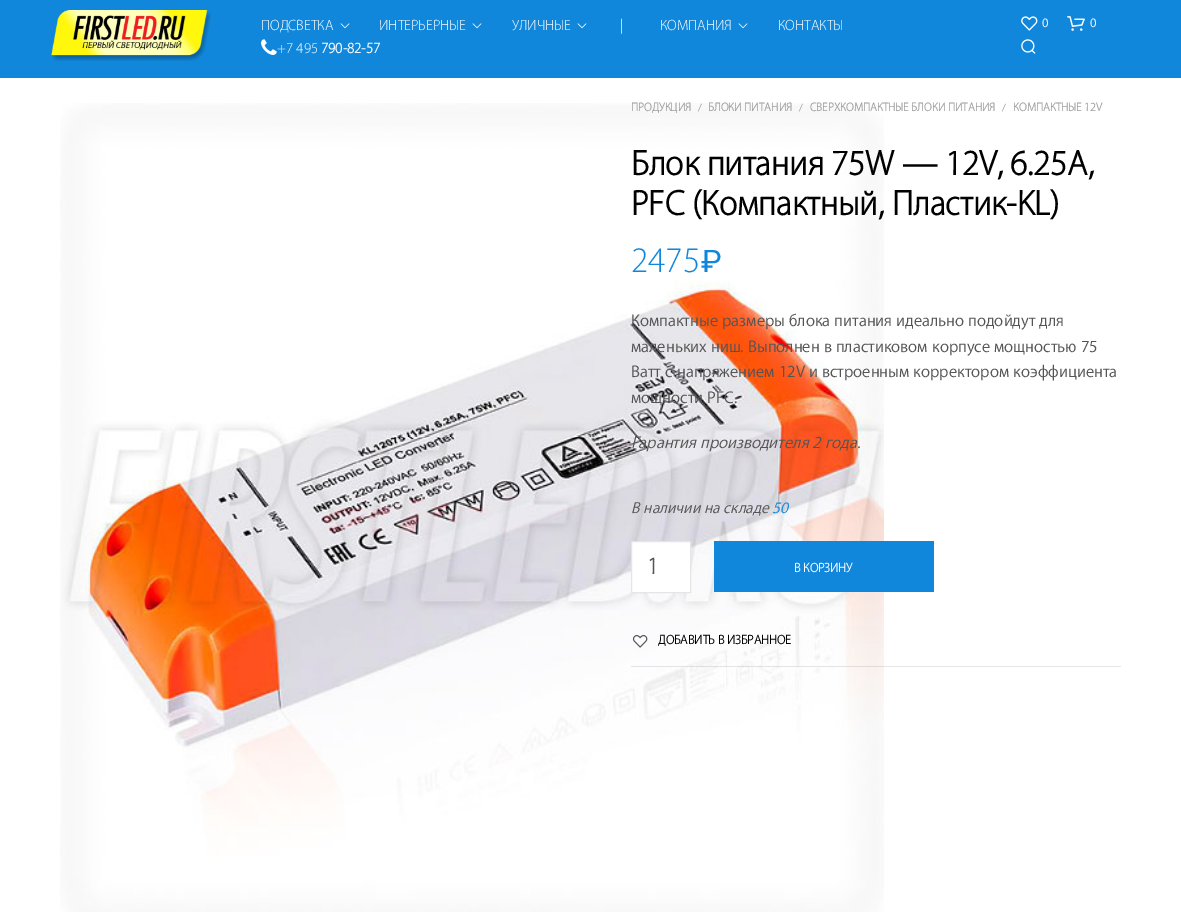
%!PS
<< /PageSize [1181 912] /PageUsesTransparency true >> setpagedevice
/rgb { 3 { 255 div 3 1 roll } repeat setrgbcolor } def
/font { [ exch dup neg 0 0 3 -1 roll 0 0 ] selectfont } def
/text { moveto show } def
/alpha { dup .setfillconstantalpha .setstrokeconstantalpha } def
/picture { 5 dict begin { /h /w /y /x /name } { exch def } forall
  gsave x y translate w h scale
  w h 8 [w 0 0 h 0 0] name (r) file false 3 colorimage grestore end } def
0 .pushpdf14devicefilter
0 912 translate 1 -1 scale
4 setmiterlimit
255 255 255 rgb
0 0 1181 912 rectfill
16 135 219 rgb
0 0 1181 78 rectfill
(img_01.rgb) 51 10 160 51 picture
(img_02.rgb) 340 23 10 6 picture
(img_02.rgb) 472 23 10 6 picture
(img_02.rgb) 577 23 10 6 picture
(img_02.rgb) 738 23 10 6 picture
(img_03.rgb) 261 39 16 16 picture
(img_04.rgb) 1021 16 17 15 picture
(img_05.rgb) 1067 16 18 15 picture
(img_06.rgb) 1021 39 15 15 picture
(img_08.rgb) 60 103 824 809 picture
255 255 255 rgb
631.5 541.5 moveto 59 0 rlineto 0 51 rlineto -59 0 rlineto closepath gsave fill grestore
229 229 229 rgb
stroke
16 135 219 rgb
714 541 220 51 rectfill
(img_07.rgb) 632 635 16 13 picture
0.15 alpha
84 84 84 rgb
631 666 490 1 rectfill
/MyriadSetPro-Thin 15 font
1 alpha
255 255 255 rgb
(ПОДСВЕТКА) 261 30 text
(ИНТЕРЬЕРНЫЕ) 379 30 text
(УЛИЧНЫЕ) 512 30 text
(|) 620 30 text
(КОМПАНИЯ) 660 30 text
(КОНТАКТЫ) 778 30 text
(+7 495) 277 53 text
/MyriadSetPro-Bold 15 font
(790-82-57) 321 53 text
/MyriadSetPro-Regular 13 font
(0) 1042 27 text
(0) 1090 27 text
/MyriadSetPro-Bold 12 font
158 158 158 rgb
(ПРОДУКЦИЯ) 631 111 text
/MyriadSetPro-Bold 10 font
(/) 698 111 text
/MyriadSetPro-Bold 12 font
(БЛОКИ ПИТАНИЯ) 708 111 text
/MyriadSetPro-Bold 10 font
(/) 799 111 text
/MyriadSetPro-Bold 12 font
(СВЕРХКОМПАКТНЫЕ БЛОКИ ПИТАНИЯ) 810 111 text
/MyriadSetPro-Bold 10 font
(/) 1002 111 text
/MyriadSetPro-Bold 12 font
(КОМПАКТНЫЕ 12V) 1013 111 text
/MyriadSetPro-Bold 35.5 font
0 0 0 rgb
(Блок питания 75W — 12V, 6.25A,) 631 175 text
(PFC \(Компактный, Пластик-KL\)) 631 215 text
/MyriadSetPro-Thin 36 font
16 135 219 rgb
(2475) 631 272 text
/Roboto-Regular 31 font
(₽) 701 272 text
/MyriadSetPro-Regular 17 font
84 84 84 rgb
(Компактные размеры блока питания идеально подойдут для) 631 326 text
(маленьких ниш. Выполнен в пластиковом корпусе мощностью 75) 631 352 text
(Ватт с напряжением 12V и встроенным корректором коэффициента) 631 377 text
(мощности PFC.) 631 403 text
/MyriadSetPro-Italic 17 font
(Гарантия производителя 2 года.) 631 448 text
/MyriadSetPro-Italic 16 font
(В наличии на складе) 631 513 text
16 135 219 rgb
(50) 772 513 text
/MyriadSetPro-Bold 24 font
84 84 84 rgb
(1) 647 574 text
/MyriadSetPro-Bold 13 font
255 255 255 rgb
(В КОРЗИНУ) 794 572 text
0 0 0 rgb
(ДОБАВИТЬ В ИЗБРАННОЕ) 658 644 text
.poppdf14devicefilter showpage
